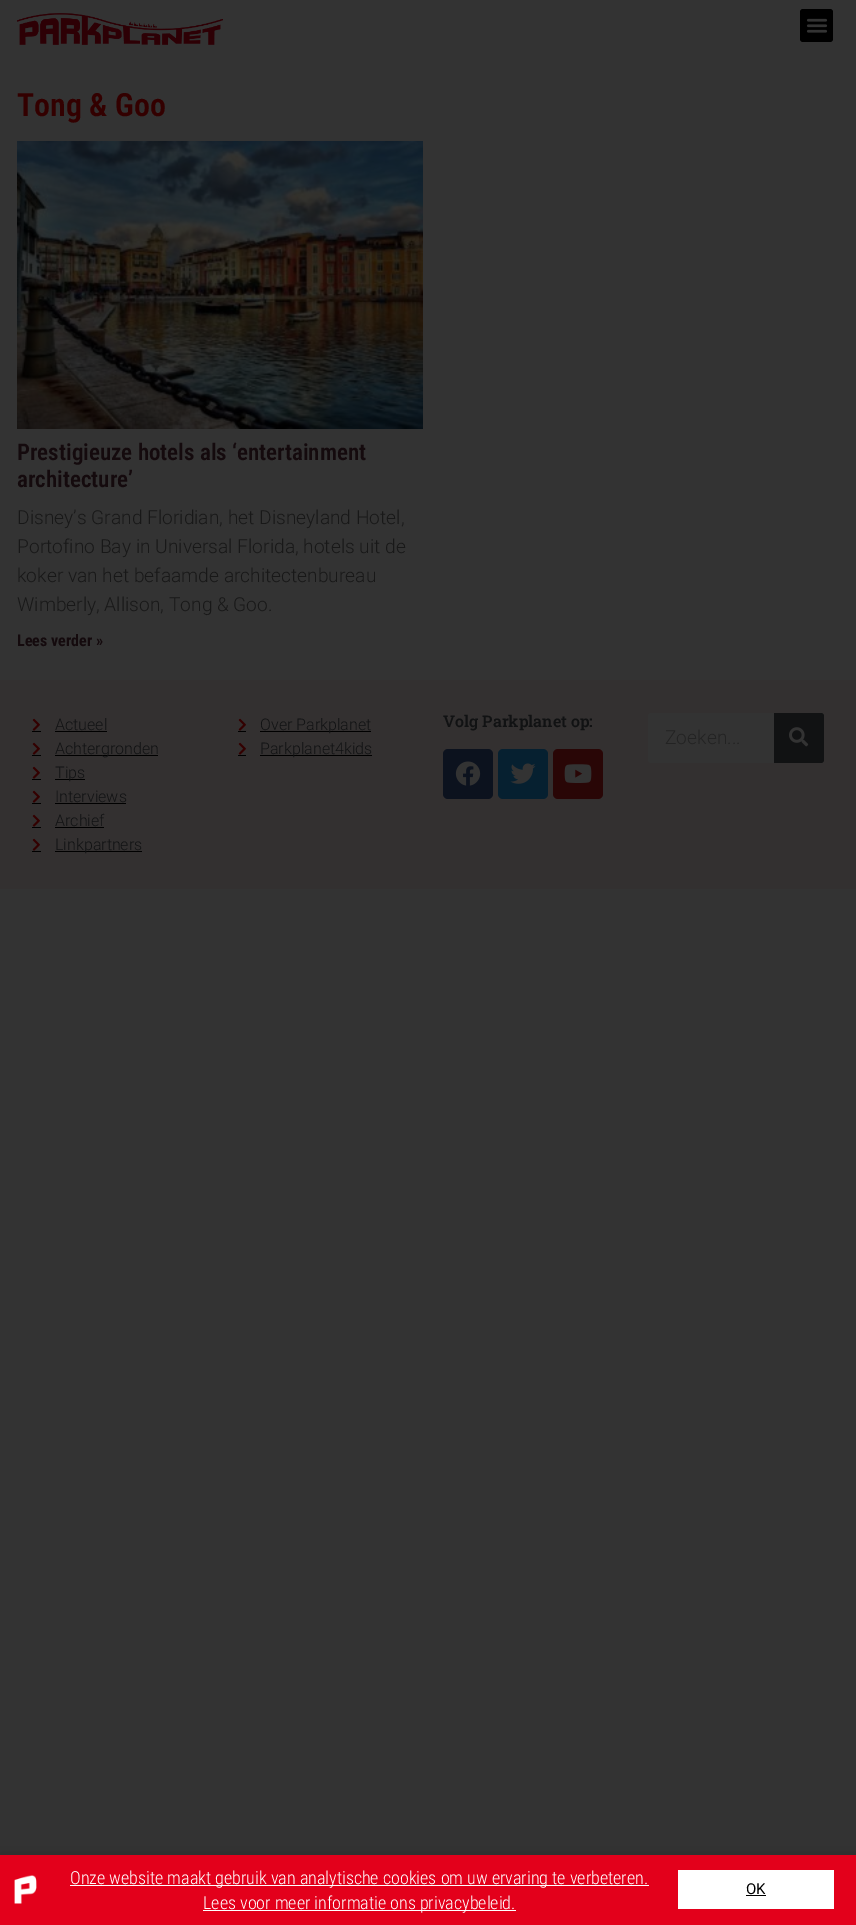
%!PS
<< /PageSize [856 1925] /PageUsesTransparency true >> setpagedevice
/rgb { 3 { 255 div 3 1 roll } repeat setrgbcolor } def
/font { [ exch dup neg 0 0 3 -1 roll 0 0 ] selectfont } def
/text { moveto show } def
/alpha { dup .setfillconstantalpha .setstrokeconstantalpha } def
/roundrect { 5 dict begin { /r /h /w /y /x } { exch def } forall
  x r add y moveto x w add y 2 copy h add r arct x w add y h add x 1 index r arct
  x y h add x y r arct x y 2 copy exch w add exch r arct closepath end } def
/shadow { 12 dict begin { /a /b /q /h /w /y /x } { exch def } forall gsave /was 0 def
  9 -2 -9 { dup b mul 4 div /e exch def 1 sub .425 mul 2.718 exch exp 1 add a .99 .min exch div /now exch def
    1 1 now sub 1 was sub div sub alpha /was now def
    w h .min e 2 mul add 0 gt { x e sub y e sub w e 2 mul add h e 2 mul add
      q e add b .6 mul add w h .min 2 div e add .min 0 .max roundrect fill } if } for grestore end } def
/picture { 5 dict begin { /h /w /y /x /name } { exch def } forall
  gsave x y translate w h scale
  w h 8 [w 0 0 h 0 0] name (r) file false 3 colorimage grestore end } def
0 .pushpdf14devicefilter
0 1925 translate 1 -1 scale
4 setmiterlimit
51 51 51 rgb
0 0 856 1925 rectfill
(img_01.rgb) 17 13 206 32 picture
0 0 0 rgb
800 9 33 33 3 roundrect fill
(img_02.rgb) 806 18 22 15 picture
(img_03.rgb) 17 141 406 288 picture
51 48 48 rgb
0 680 856 209 rectfill
(img_04.rgb) 32 718 8 13 picture
0 0 0 rgb
32 731 9 1 rectfill
55 731 52 1 rectfill
(img_04.rgb) 32 742 8 13 picture
32 755 9 1 rectfill
55 755 103 1 rectfill
(img_04.rgb) 32 766 8 13 picture
32 779 9 1 rectfill
55 779 30 1 rectfill
(img_04.rgb) 32 790 8 13 picture
32 803 9 1 rectfill
55 803 71 1 rectfill
(img_04.rgb) 32 814 8 13 picture
32 827 9 1 rectfill
55 827 49 1 rectfill
(img_04.rgb) 32 838 8 13 picture
32 851 9 1 rectfill
55 851 87 1 rectfill
(img_04.rgb) 238 718 8 13 picture
238 731 8 1 rectfill
260 731 111 1 rectfill
(img_04.rgb) 238 742 8 13 picture
238 755 8 1 rectfill
260 755 112 1 rectfill
12 18 30 rgb
443 749 50 50 5 roundrect fill
(img_05.rgb) 455 761 26 25 picture
6 32 48 rgb
498 749 50 50 5 roundrect fill
(img_06.rgb) 510 763 26 21 picture
41 6 6 rgb
553 749 50 50 5 roundrect fill
(img_07.rgb) 564 764 28 19 picture
51 51 51 rgb
648 713 176 50 3 roundrect fill
17 18 19 rgb
774 713 moveto 47 0 rlineto 1.5 0 3 1.5 3 3 rcurveto 0 44 rlineto 0 1.5 -1.5 3 -3 3 rcurveto -47 0 rlineto closepath fill
(img_08.rgb) 789 727 20 20 picture
0 0 0 rgb
-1 1860 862 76 0 11.5 0.2 shadow
227 0 27 rgb
0 1855 856 70 rectfill
(img_09.rgb) 14 1875 23 29 picture
255 255 255 rgb
70 1885 579 1 rectfill
203 1910 313 1 rectfill
678 1870 156 39 rectfill
0 0 0 rgb
746 1895 20 1 rectfill
/RobotoCondensed-SemiBold 32 font
51 0 0 rgb
(Tong & Goo) 17 116 text
/RobotoCondensed-SemiBold 23 font
20 10 13 rgb
(Prestigieuze hotels als ‘entertainment) 17 460 text
(architecture’) 17 487 text
/Roboto-Light 19.2 font
24 24 24 rgb
(Disney’s Grand Floridian, het Disneyland Hotel,) 17 524 text
(Portofino Bay in Universal Florida, hotels uit de) 17 553 text
(koker van het befaamde architectenbureau) 17 582 text
(Wimberly, Allison, Tong & Goo.) 17 611 text
/RobotoCondensed-Bold 16 font
20 10 13 rgb
(Lees verder ») 17 646 text
/Roboto-Light 16 font
17 18 19 rgb
(Actueel) 55 730 text
(Achtergronden) 55 754 text
(Tips) 55 778 text
(Interviews) 55 802 text
(Archief) 55 826 text
(Linkpartners) 55 850 text
(Over Parkplanet) 260 730 text
(Parkplanet4kids) 260 754 text
/RobotoSlab-SemiBold 16 font
(Volg Parkplanet op:) 443 727 text
/Roboto-Light 19.2 font
35 35 35 rgb
(Zoeken...) 665 744 text
/RobotoCondensed-Light 18 font
255 255 255 rgb
(Onze website maakt gebruik van analytische cookies om uw ervaring te verbeteren.) 70 1884 text
(Lees voor meer informatie ons privacybeleid.) 203 1909 text
/Roboto-Regular 15 font
0 0 0 rgb
(OK) 746 1894 text
.poppdf14devicefilter showpage
